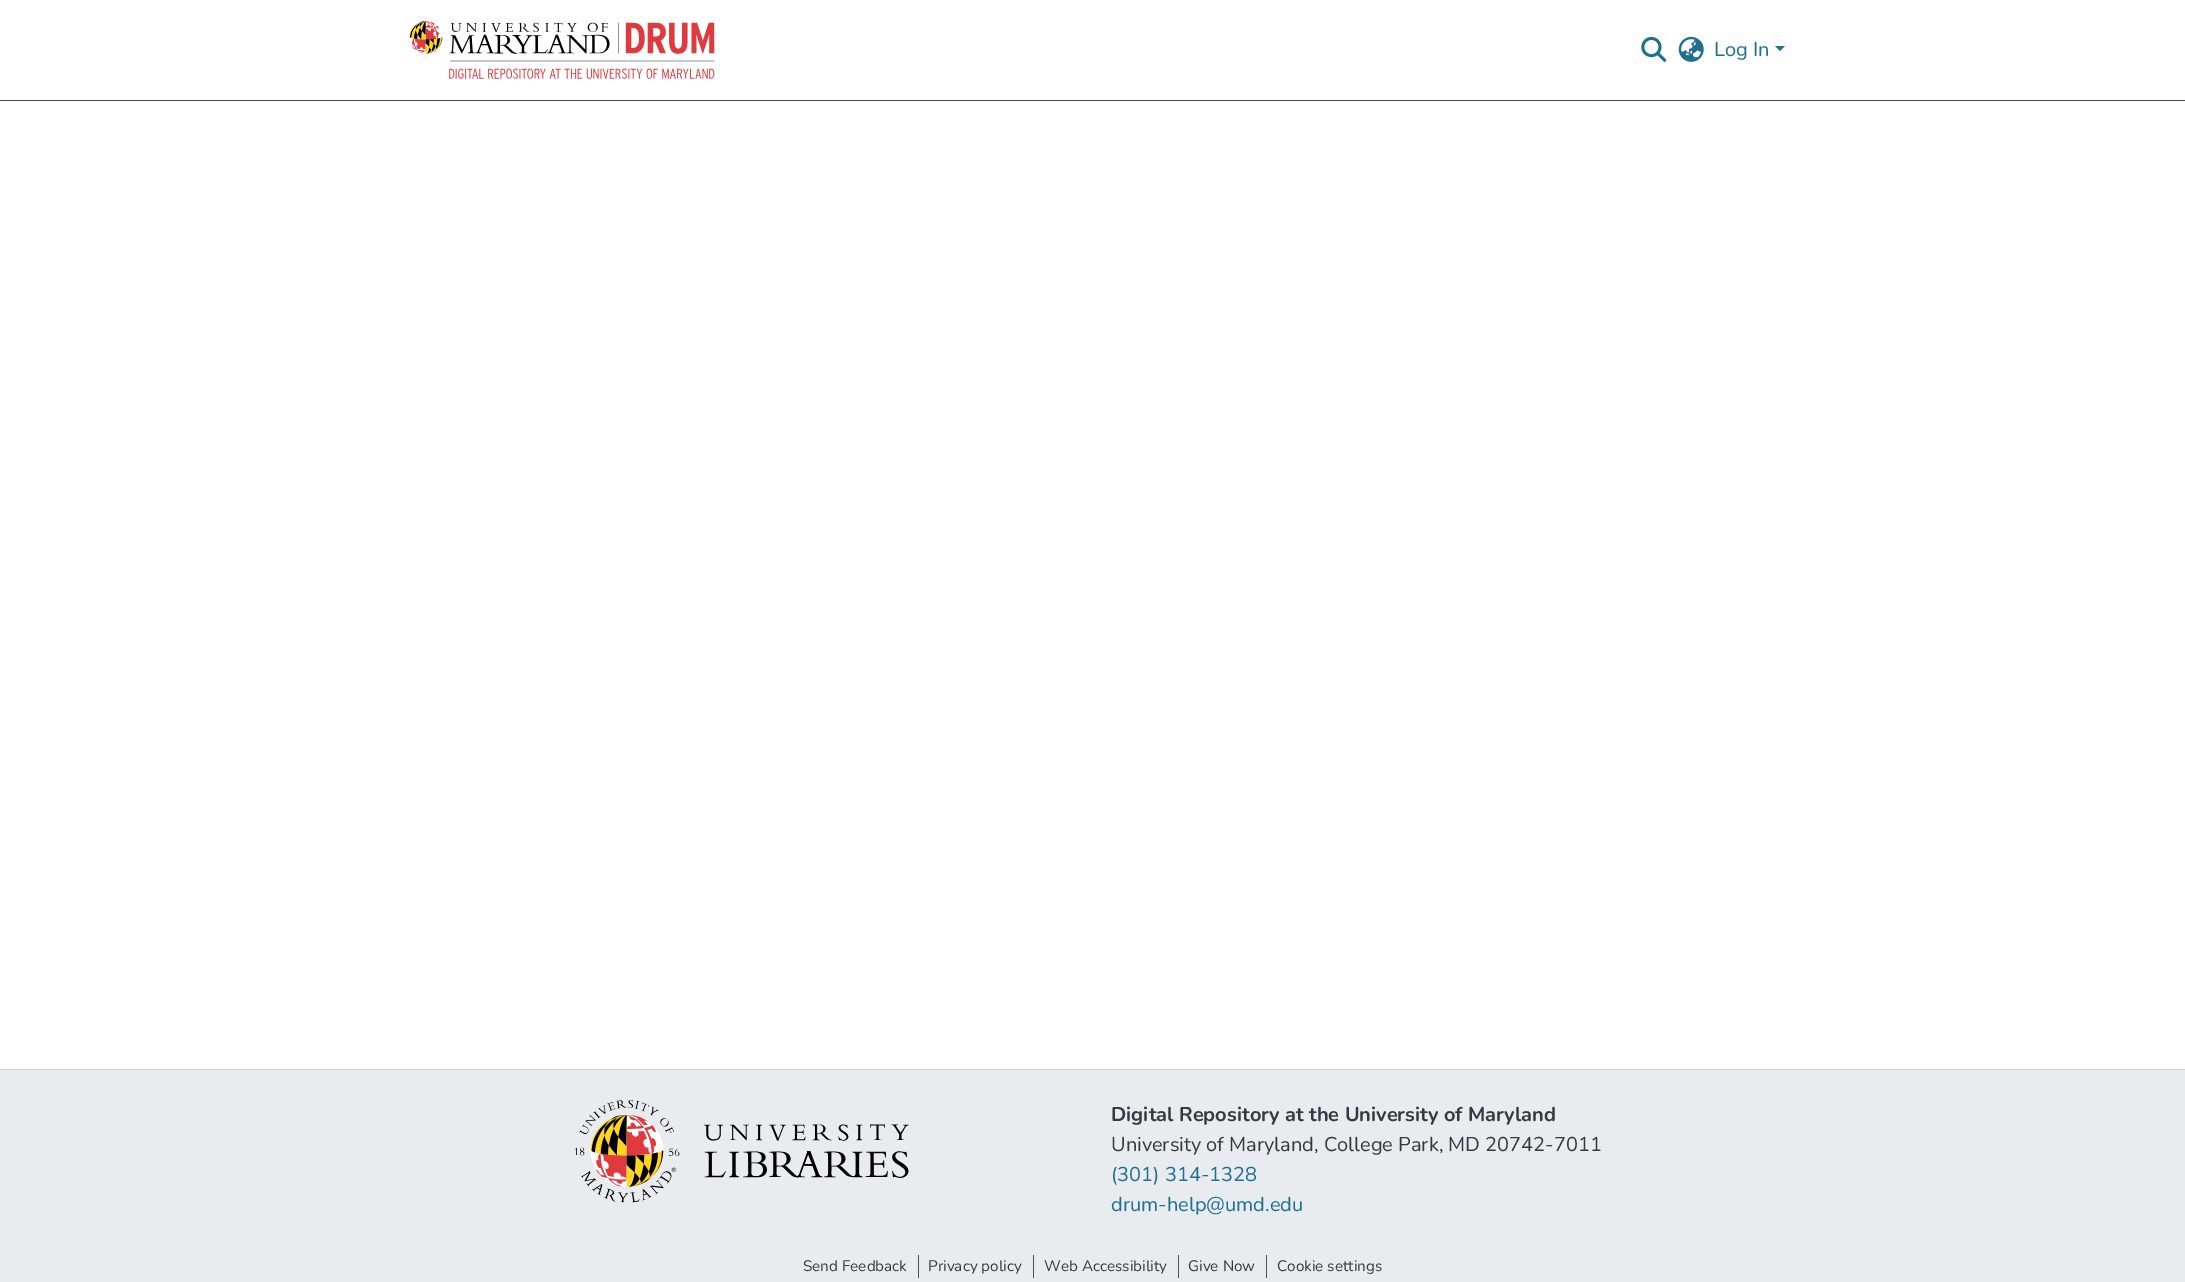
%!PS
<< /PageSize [2185 1282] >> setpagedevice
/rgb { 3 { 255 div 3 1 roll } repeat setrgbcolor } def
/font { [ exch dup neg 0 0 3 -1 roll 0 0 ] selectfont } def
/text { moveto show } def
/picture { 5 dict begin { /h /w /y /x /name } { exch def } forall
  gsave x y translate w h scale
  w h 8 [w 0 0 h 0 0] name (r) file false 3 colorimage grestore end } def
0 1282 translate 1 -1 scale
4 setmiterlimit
255 255 255 rgb
0 0 2185 1282 rectfill
69 69 69 rgb
0 100 2185 1 rectfill
(img_01.rgb) 409 20 306 59 picture
(img_02.rgb) 1641 36 26 26 picture
(img_03.rgb) 1678 36 26 26 picture
30 111 144 rgb
1775 46 moveto 10 0 rlineto -5 5 rlineto closepath fill
233 236 239 rgb
0 1070 2185 212 rectfill
206 212 218 rgb
0 1069 2185 1 rectfill
(img_04.rgb) 574 1100 335 103 picture
73 80 87 rgb
918 1255 1 23 rectfill
1033 1255 1 23 rectfill
1178 1255 1 23 rectfill
1266 1255 1 23 rectfill
/Nunito-Regular 20 font
30 111 144 rgb
(Log In) 1714 56 text
/Nunito-Bold 20 font
52 58 64 rgb
(Digital Repository at the University of Maryland) 1111 1121 text
/Nunito-Regular 20 font
(University of Maryland, College Park, MD 20742-7011) 1111 1151 text
30 111 144 rgb
(\(301\) 314-1328) 1111 1181 text
(drum-help@umd.edu) 1111 1211 text
/Nunito-Regular 15.25 font
52 58 64 rgb
(Send Feedback) 803 1271 text
(Privacy policy) 928 1271 text
(Web Accessibility) 1044 1271 text
(Give Now) 1188 1271 text
(Cookie settings) 1277 1271 text
showpage
